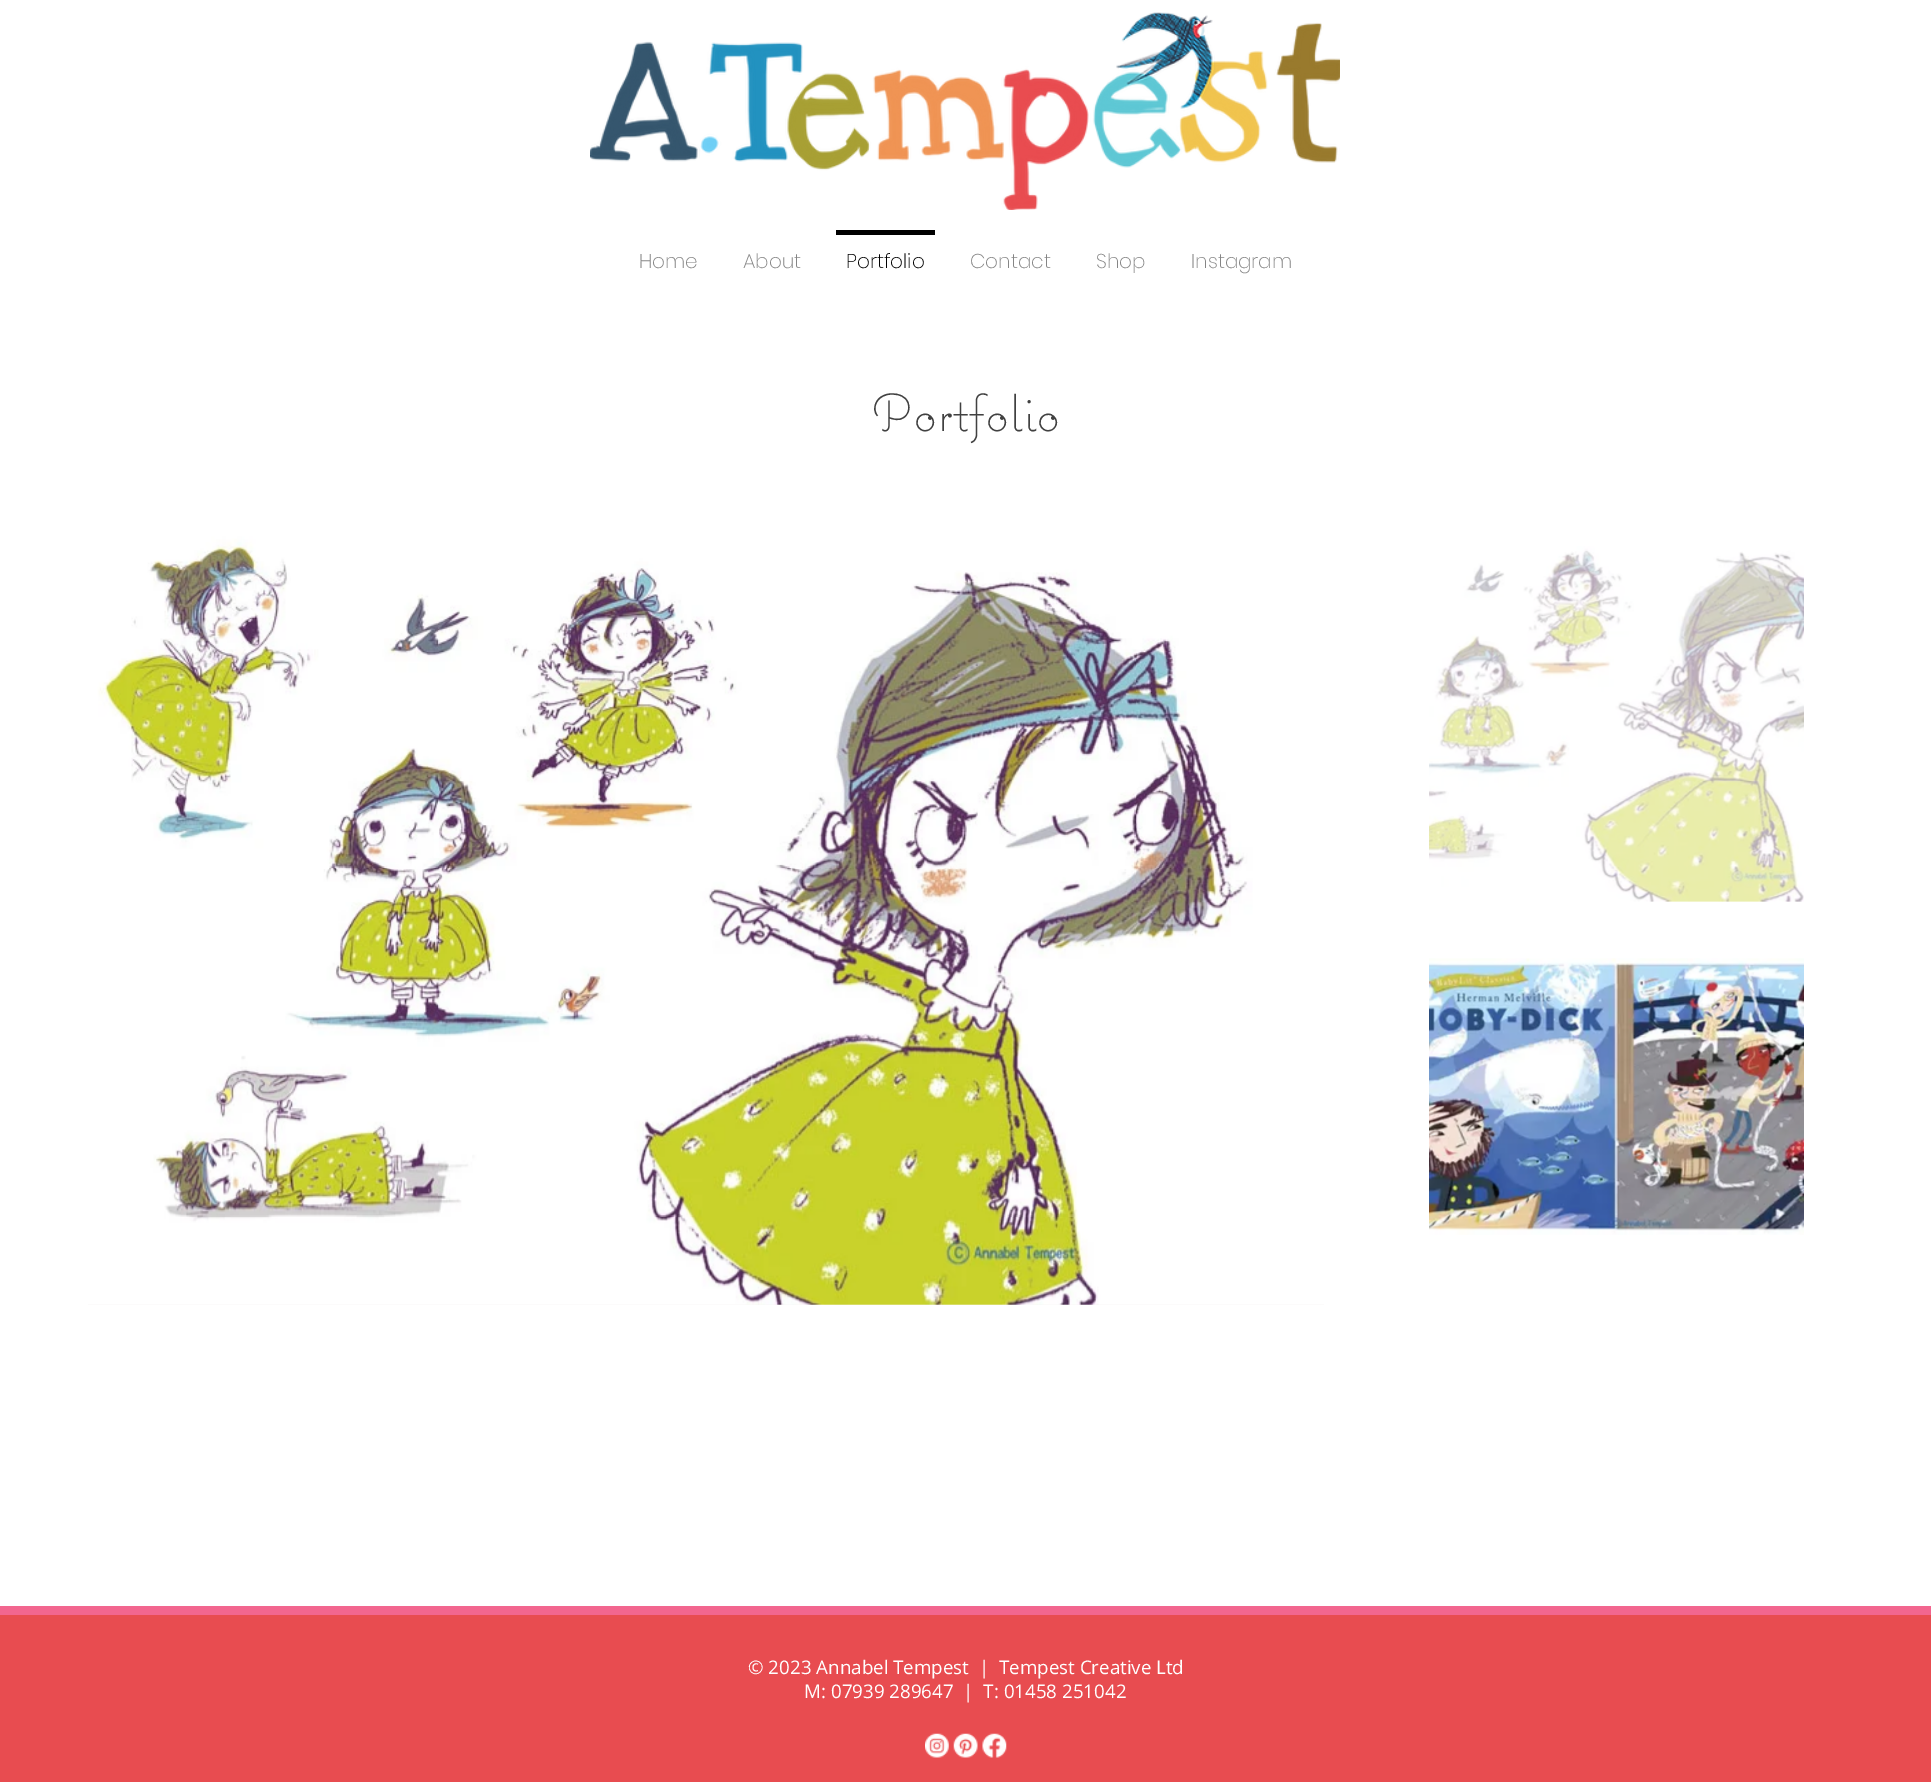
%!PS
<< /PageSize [1931 1782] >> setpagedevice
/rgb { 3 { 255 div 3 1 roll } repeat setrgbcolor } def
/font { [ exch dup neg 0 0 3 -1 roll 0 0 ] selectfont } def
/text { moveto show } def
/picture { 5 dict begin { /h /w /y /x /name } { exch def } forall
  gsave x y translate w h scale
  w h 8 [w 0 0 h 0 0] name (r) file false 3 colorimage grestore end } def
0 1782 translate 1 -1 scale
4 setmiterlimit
255 255 255 rgb
0 0 1931 1782 rectfill
(img_01.rgb) 590 12 750 198 picture
0 0 0 rgb
836 230 99 5 rectfill
244 243 242 rgb
88 1304 1236 1 rectfill
(img_02.rgb) 88 518 1236 787 picture
(img_03.rgb) 1429 546 375 356 picture
(img_04.rgb) 1429 958 375 277 picture
232 76 80 rgb
0 1615 1931 167 rectfill
242 102 143 rgb
0 1606 1931 9 rectfill
(img_05.rgb) 925 1733 24 25 picture
(img_06.rgb) 953 1733 25 25 picture
(img_07.rgb) 982 1733 25 25 picture
/Poppins-ExtraLight 20 font
133 133 133 rgb
(Home) 639 268 text
(About) 743 268 text
0 0 0 rgb
(Portfolio) 846 268 text
133 133 133 rgb
(Contact) 970 268 text
(Shop) 1096 268 text
(Instagram) 1191 268 text
/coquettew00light-Light 52.5 font
65 65 65 rgb
(Portfolio) 872 431 text
/OpenSans-Regular 18.75 font
255 255 255 rgb
(© 2023 Annabel Tempest  |  Tempest Creative Ltd) 748 1674 text
(M: 07939 289647  |  T: 01458 251042) 804 1698 text
showpage
